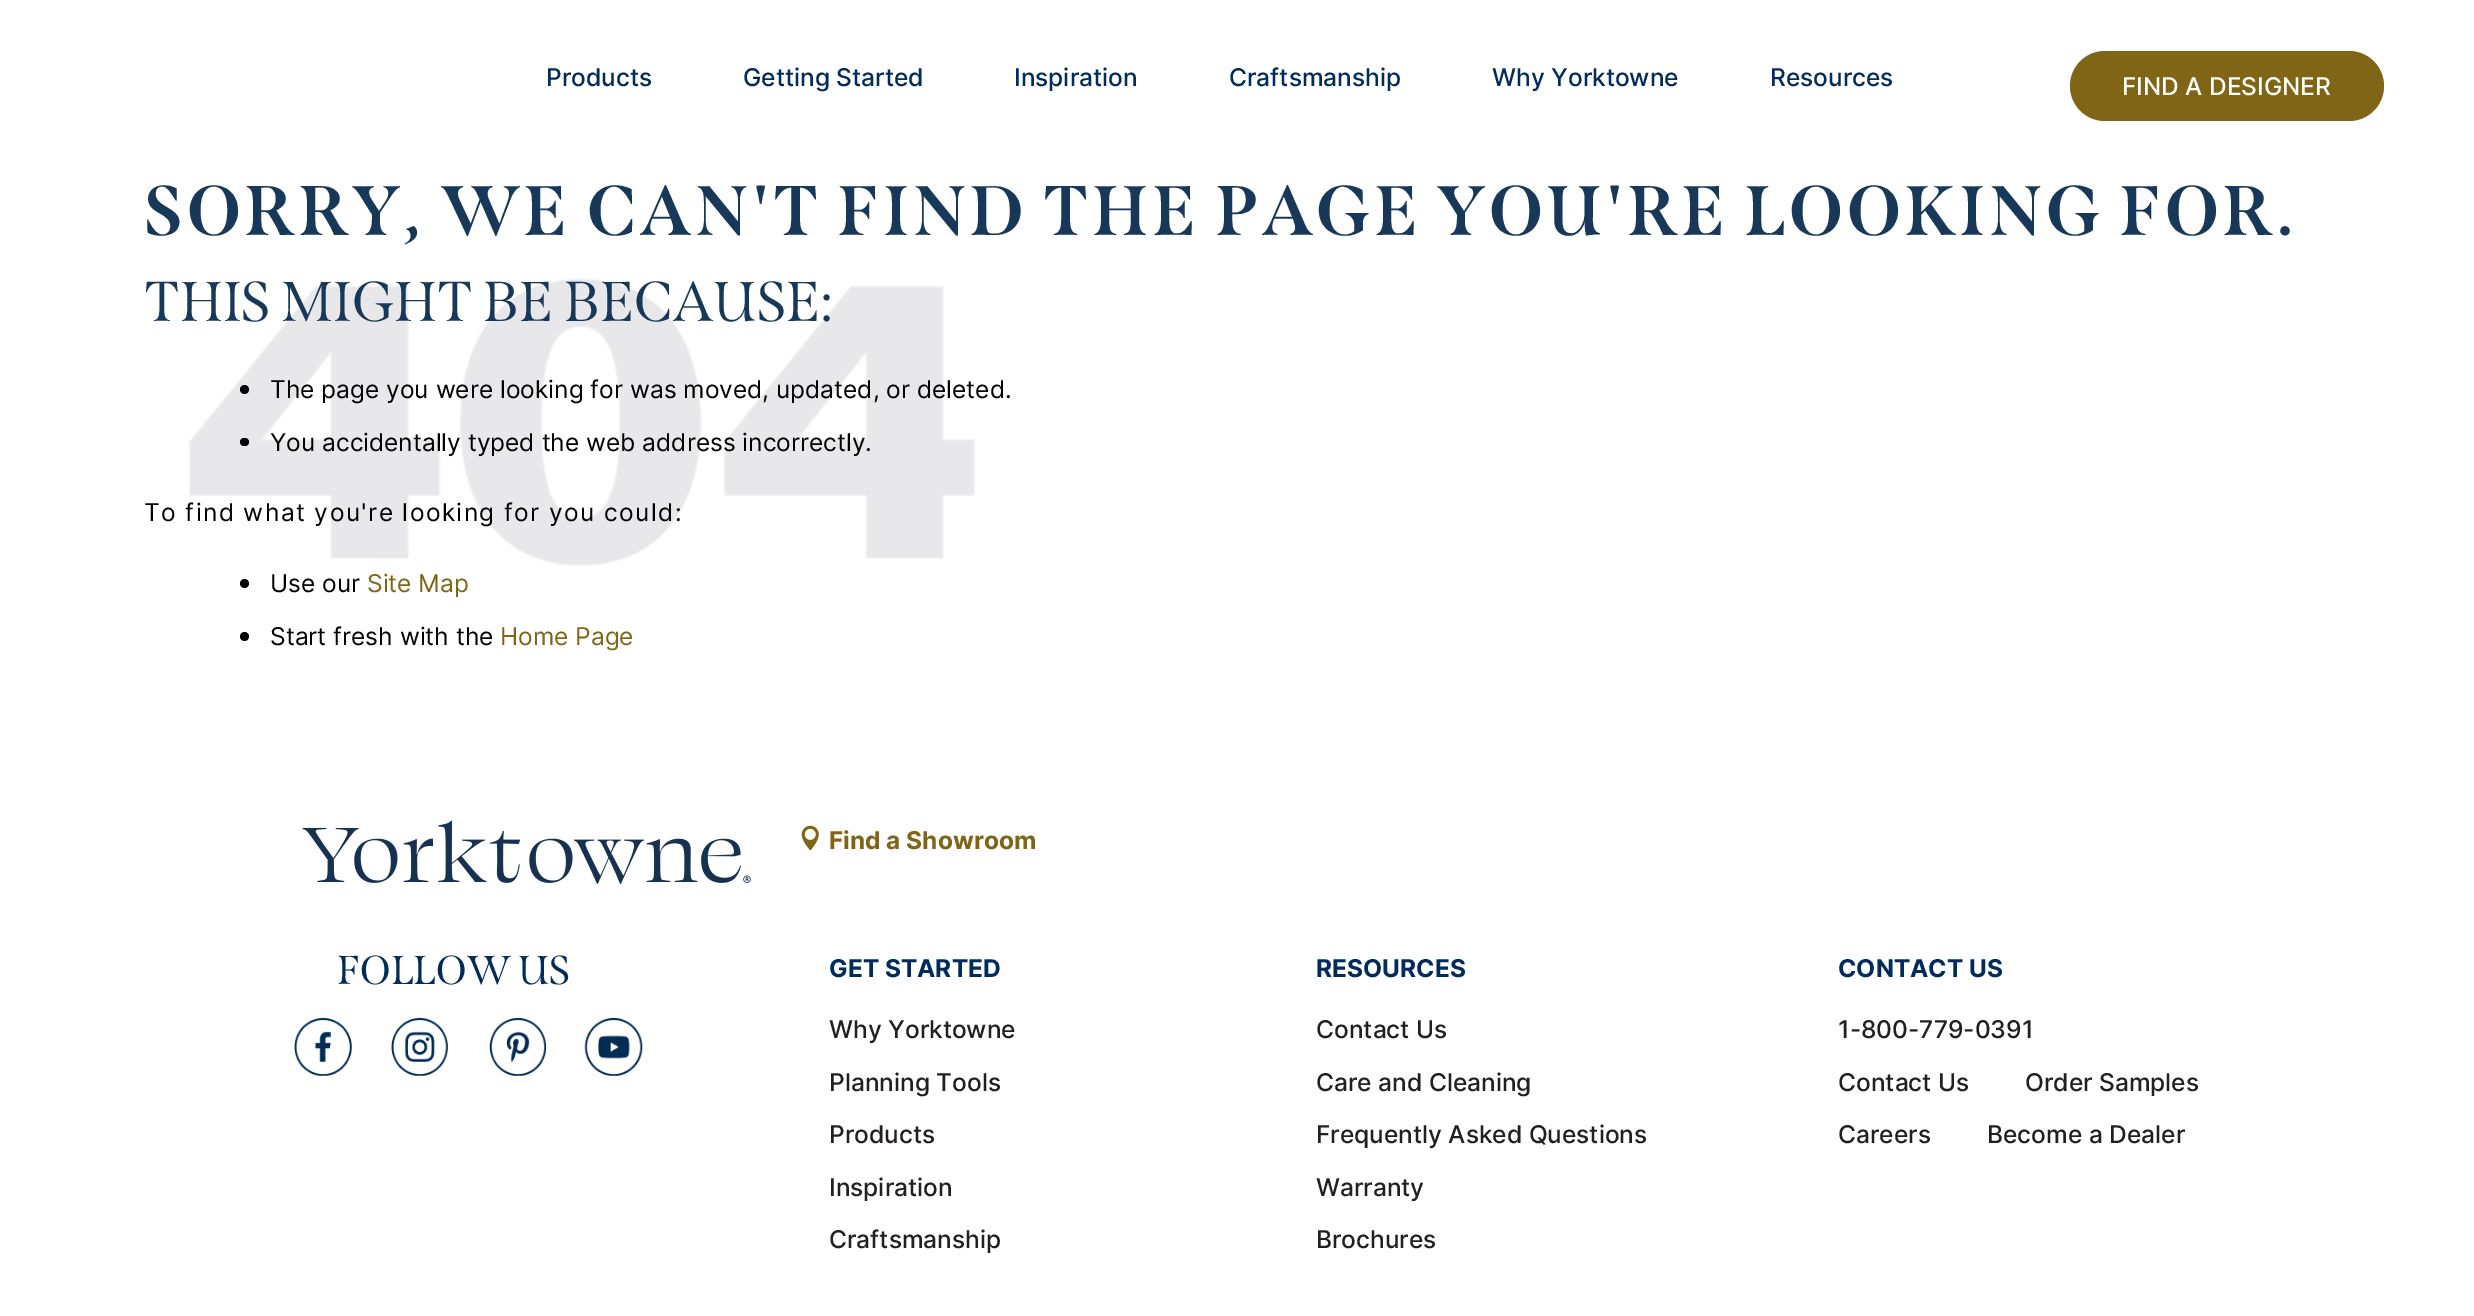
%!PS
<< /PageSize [2474 1316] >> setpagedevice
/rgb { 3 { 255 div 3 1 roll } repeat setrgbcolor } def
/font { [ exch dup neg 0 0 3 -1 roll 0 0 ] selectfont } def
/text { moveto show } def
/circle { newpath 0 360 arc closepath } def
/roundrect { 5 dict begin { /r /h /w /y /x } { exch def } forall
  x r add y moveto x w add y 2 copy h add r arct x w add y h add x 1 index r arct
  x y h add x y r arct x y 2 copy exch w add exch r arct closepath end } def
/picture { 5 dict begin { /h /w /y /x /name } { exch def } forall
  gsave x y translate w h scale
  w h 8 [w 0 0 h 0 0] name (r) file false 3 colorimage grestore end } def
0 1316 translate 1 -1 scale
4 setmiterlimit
255 255 255 rgb
0 0 2474 1316 rectfill
129 101 22 rgb
2070 51 314 70 35 roundrect fill
(img_01.rgb) 189 278 786 288 picture
0 0 0 rgb
244.5 389.5 4.5 circle fill
240 438 9 8 4 roundrect fill
244.5 583.5 4.5 circle fill
244.5 636.5 4.5 circle fill
(img_02.rgb) 302 820 449 64 picture
(img_03.rgb) 801 825 18 26 picture
(img_04.rgb) 294 1017 58 59 picture
(img_05.rgb) 391 1017 57 59 picture
(img_06.rgb) 489 1017 57 59 picture
(img_07.rgb) 584 1017 59 59 picture
/Inter-Medium 24.5 font
0 43 90 rgb
(Products) 546 86 text
(Getting Started) 743 86 text
(Inspiration) 1014 86 text
(Craftsmanship) 1229 86 text
(Why Yorktowne) 1492 86 text
(Resources) 1770 86 text
255 255 255 rgb
(FIND A DESIGNER) 2122 95 text
/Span-Bold 70 font
24 56 89 rgb
144 235 moveto 3.5 0 (SORRY, WE CAN'T FIND THE PAGE YOU'RE LOOKING FOR.) ashow
/Span-Regular 56 font
(THIS MIGHT BE BECAUSE:) 144 321 text
/Inter-Regular 24.5 font
0 0 0 rgb
(The page you were looking for was moved, updated, or deleted.) 270 398 text
(You accidentally typed the web address incorrectly.) 270 451 text
144 521 moveto 1.4 0 (To find what you're looking for you could:) ashow
(Use our) 270 592 text
129 101 22 rgb
(Site Map) 367 592 text
0 0 0 rgb
(Start fresh with the) 270 645 text
129 101 22 rgb
(Home Page) 500 645 text
/Inter-Bold 24.5 font
(Find a Showroom) 829 849 text
/Span-Regular 40.25 font
0 43 90 rgb
(FOLLOW US) 337 984 text
/Inter-Bold 24.5 font
(GET STARTED) 829 977 text
/Inter-Medium 24.5 font
35 31 32 rgb
(Why Yorktowne) 829 1038 text
(Planning Tools) 829 1091 text
(Products) 829 1143 text
(Inspiration) 829 1196 text
(Craftsmanship) 829 1248 text
/Inter-Bold 24.5 font
0 43 90 rgb
(RESOURCES) 1316 977 text
/Inter-Medium 24.5 font
35 31 32 rgb
(Contact Us) 1316 1038 text
(Care and Cleaning) 1316 1091 text
(Frequently Asked Questions) 1316 1143 text
(Warranty) 1316 1196 text
(Brochures) 1316 1248 text
/Inter-Bold 24.5 font
0 43 90 rgb
(CONTACT US) 1838 977 text
/Inter-Medium 24.5 font
35 31 32 rgb
(1-800-779-0391) 1838 1038 text
(Contact Us) 1838 1091 text
(Order Samples) 2025 1091 text
(Careers) 1838 1143 text
(Become a Dealer) 1987 1143 text
showpage
